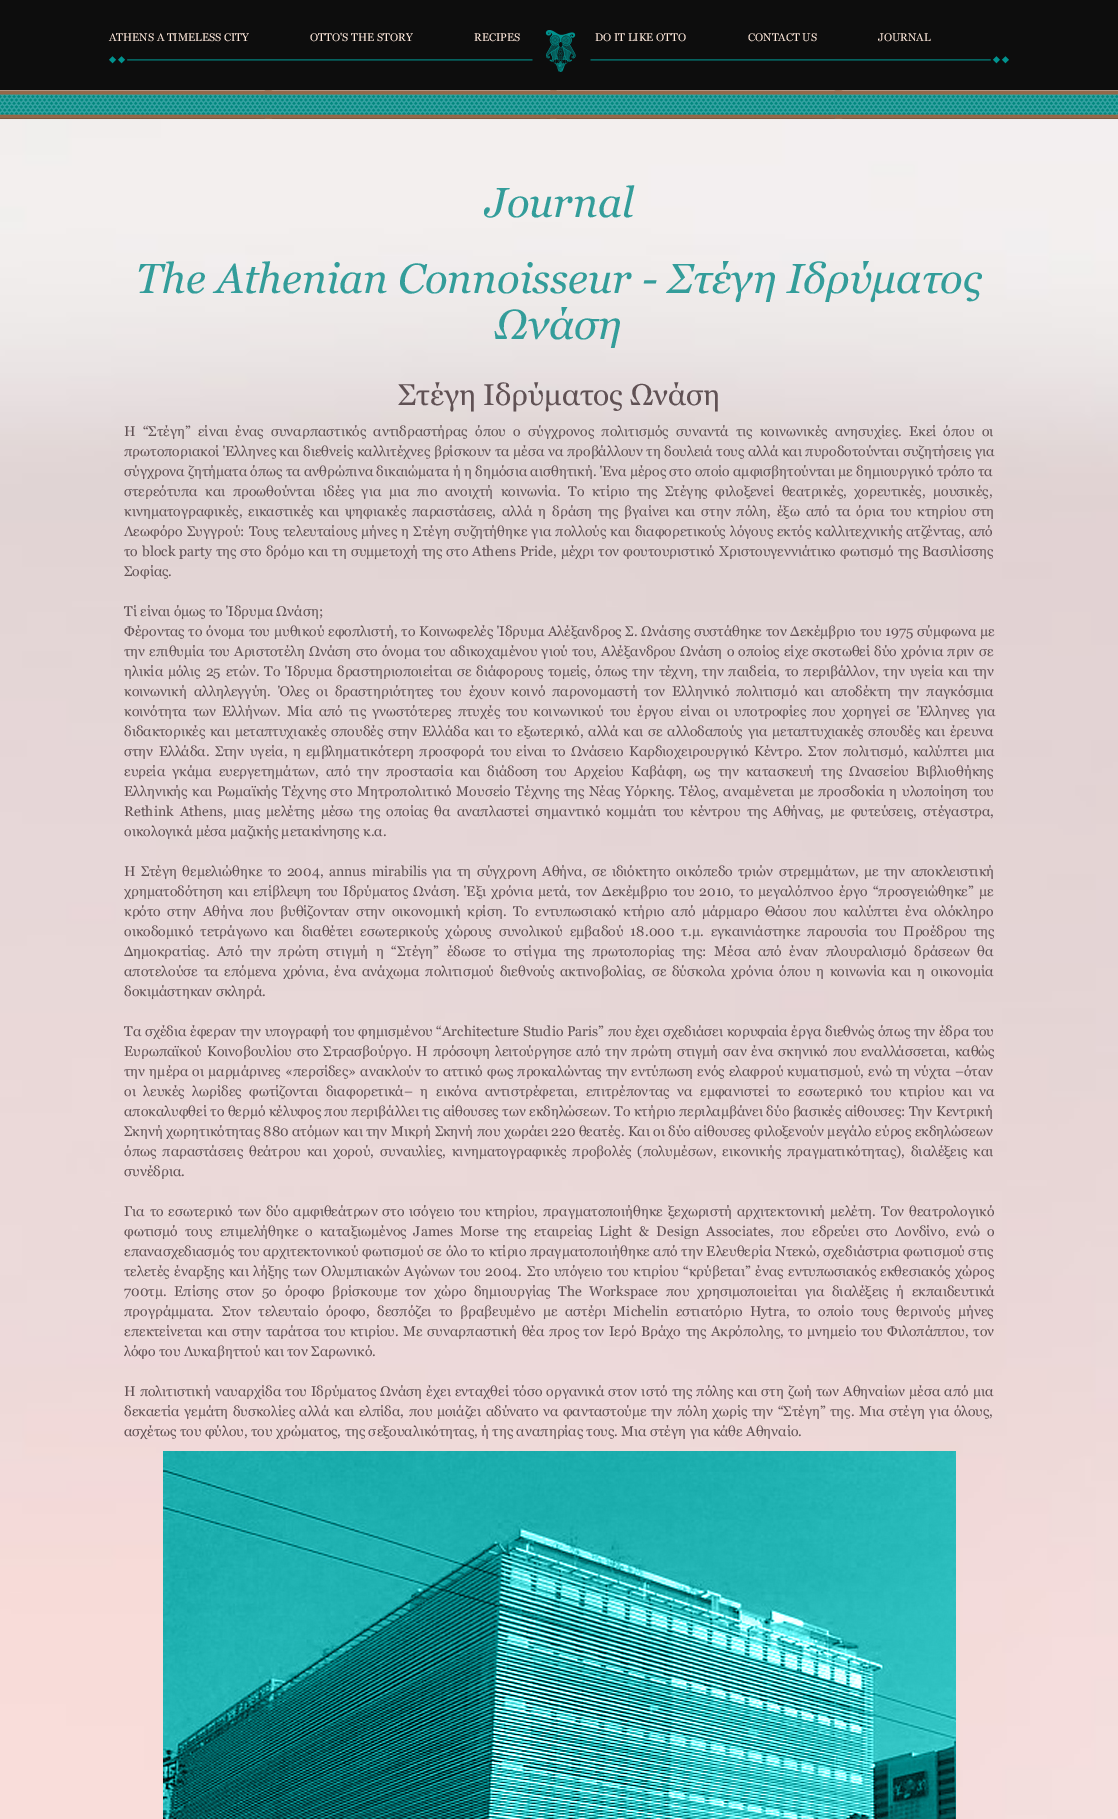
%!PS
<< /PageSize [1118 1819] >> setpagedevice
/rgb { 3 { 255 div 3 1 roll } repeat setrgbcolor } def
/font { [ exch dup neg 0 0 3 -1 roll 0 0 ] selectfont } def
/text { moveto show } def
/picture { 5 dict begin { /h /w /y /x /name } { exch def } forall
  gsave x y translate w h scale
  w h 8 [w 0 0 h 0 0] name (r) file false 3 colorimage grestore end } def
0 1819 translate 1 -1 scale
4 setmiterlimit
255 255 255 rgb
0 0 1118 1819 rectfill
13 13 13 rgb
0 0 1118 90 rectfill
(img_01.rgb) 545 30 31 42 picture
(img_02.rgb) 109 56 424 8 picture
(img_03.rgb) 590 56 419 8 picture
(img_04.rgb) 0 90 1118 29 picture
(img_05.rgb) 0 119 1118 1700 picture
(img_06.rgb) 163 1451 793 368 picture
/Georgia-Regular 11 font
255 233 220 rgb
(ATHENS A TIMELESS CITY) 109 41 text
(OTTO'S THE STORY) 310 41 text
(RECIPES) 474 41 text
(DO IT LIKE OTTO) 595 41 text
(CONTACT US) 748 41 text
(JOURNAL) 878 41 text
/Georgia-Italic 42 font
51 157 154 rgb
(Journal) 485 217 text
(The Athenian Connoisseur - Στέγη Ιδρύματος) 136 293 text
(Ωνάση) 495 339 text
/Georgia-Regular 30 font
96 81 84 rgb
(Στέγη Ιδρύματος Ωνάση) 398 405 text
/Georgia-Regular 14 font
124 436 moveto 3.9 0 32 (Η “Στέγη” είναι ένας συναρπαστικός αντιδραστήρας όπου ο σύγχρονος πολιτισμός συναντά τις κοινωνικές ανησυχίες. Εκεί όπου οι) widthshow
124 456 moveto 0.25 0 32 (πρωτοποριακοί Έλληνες και διεθνείς καλλιτέχνες βρίσκουν τα μέσα να προβάλλουν τη δουλειά τους αλλά και πυροδοτούνται συζητήσεις για) widthshow
(σύγχρονα ζητήματα όπως τα ανθρώπινα δικαιώματα ή η δημόσια αισθητική. Ένα μέρος στο οποίο αμφισβητούνται με δημιουργικό τρόπο τα) 124 476 text
124 496 moveto 4.25 0 32 (στερεότυπα και προωθούνται ιδέες για μια πιο ανοιχτή κοινωνία. Το κτίριο της Στέγης φιλοξενεί θεατρικές, χορευτικές, μουσικές,) widthshow
124 516 moveto 2.5 0 32 (κινηματογραφικές, εικαστικές και ψηφιακές παραστάσεις, αλλά η δράση της βγαίνει και στην πόλη, έξω από τα όρια του κτηρίου στη) widthshow
124 536 moveto 0.8 0 32 (Λεωφόρο Συγγρού: Τους τελευταίους μήνες η Στέγη συζητήθηκε για πολλούς και διαφορετικούς λόγους εκτός καλλιτεχνικής ατζέντας, από) widthshow
124 556 moveto 0.6 0 32 (το block party της στο δρόμο και τη συμμετοχή της στο Athens Pride, μέχρι τον φουτουριστικό Χριστουγεννιάτικο φωτισμό της Βασιλίσσης) widthshow
(Σοφίας.) 124 576 text
(Τί είναι όμως το Ίδρυμα Ωνάση;) 124 616 text
124 636 moveto 0.5 0 32 (Φέροντας το όνομα του μυθικού εφοπλιστή, το Κοινωφελές Ίδρυμα Αλέξανδρος Σ. Ωνάσης συστάθηκε τον Δεκέμβριο του 1975 σύμφωνα με) widthshow
124 656 moveto 0.75 0 32 (την επιθυμία του Αριστοτέλη Ωνάση στο όνομα του αδικοχαμένου γιού του, Αλέξανδρου Ωνάση ο οποίος είχε σκοτωθεί δύο χρόνια πριν σε) widthshow
124 676 moveto 1.5 0 32 (ηλικία μόλις 25 ετών. Το Ίδρυμα δραστηριοποιείται σε διάφορους τομείς, όπως την τέχνη, την παιδεία, το περιβάλλον, την υγεία και την) widthshow
124 696 moveto 3.5 0 32 (κοινωνική αλληλεγγύη. Όλες οι δραστηριότητες του έχουν κοινό παρονομαστή τον Ελληνικό πολιτισμό και αποδέκτη την παγκόσμια) widthshow
124 716 moveto 2.75 0 32 (κοινότητα των Ελλήνων. Μία από τις γνωστότερες πτυχές του κοινωνικού του έργου είναι οι υποτροφίες που χορηγεί σε Έλληνες για) widthshow
124 736 moveto 1.4 0 32 (διδακτορικές και μεταπτυχιακές σπουδές στην Ελλάδα και το εξωτερικό, αλλά και σε αλλοδαπούς για μεταπτυχιακές σπουδές και έρευνα) widthshow
124 756 moveto 1.9 0 32 (στην Ελλάδα. Στην υγεία, η εμβληματικότερη προσφορά του είναι το Ωνάσειο Καρδιοχειρουργικό Κέντρο. Στον πολιτισμό, καλύπτει μια) widthshow
124 776 moveto 3.75 0 32 (ευρεία γκάμα ευεργετημάτων, από την προστασία και διάδοση του Αρχείου Καβάφη, ως την κατασκευή της Ωνασείου Βιβλιοθήκης) widthshow
124 796 moveto 1.2 0 32 (Ελληνικής και Ρωμαϊκής Τέχνης στο Μητροπολιτικό Μουσείο Τέχνης της Νέας Υόρκης. Τέλος, αναμένεται με προσδοκία η υλοποίηση του) widthshow
124 816 moveto 2.75 0 32 (Rethink Athens, μιας μελέτης μέσω της οποίας θα αναπλαστεί σημαντικό κομμάτι του κέντρου της Αθήνας, με φυτεύσεις, στέγαστρα,) widthshow
(οικολογικά μέσα μαζικής μετακίνησης κ.α.) 124 836 text
124 876 moveto 1.9 0 32 (Η Στέγη θεμελιώθηκε το 2004, annus mirabilis για τη σύγχρονη Αθήνα, σε ιδιόκτητο οικόπεδο τριών στρεμμάτων, με την αποκλειστική) widthshow
124 896 moveto 1.75 0 32 (χρηματοδότηση και επίβλεψη του Ιδρύματος Ωνάση. Έξι χρόνια μετά, τον Δεκέμβριο του 2010, το μεγαλόπνοο έργο “προσγειώθηκε” με) widthshow
124 916 moveto 3.1 0 32 (κρότο στην Αθήνα που βυθίζονταν στην οικονομική κρίση. Το εντυπωσιακό κτήριο από μάρμαρο Θάσου που καλύπτει ένα ολόκληρο) widthshow
124 936 moveto 3.75 0 32 (οικοδομικό τετράγωνο και διαθέτει εσωτερικούς χώρους συνολικού εμβαδού 18.000 τ.μ. εγκαινιάστηκε παρουσία του Προέδρου της) widthshow
124 956 moveto 4.1 0 32 (Δημοκρατίας. Από την πρώτη στιγμή η “Στέγη” έδωσε το στίγμα της πρωτοπορίας της: Μέσα από έναν πλουραλισμό δράσεων θα) widthshow
124 976 moveto 2.5 0 32 (αποτελούσε τα επόμενα χρόνια, ένα ανάχωμα πολιτισμού διεθνούς ακτινοβολίας, σε δύσκολα χρόνια όπου η κοινωνία και η οικονομία) widthshow
(δοκιμάστηκαν σκληρά.) 124 996 text
124 1036 moveto 0.25 0 32 (Τα σχέδια έφεραν την υπογραφή του φημισμένου “Architecture Studio Paris” που έχει σχεδιάσει κορυφαία έργα διεθνώς όπως την έδρα του) widthshow
124 1056 moveto 1.4 0 32 (Ευρωπαϊκού Κοινοβουλίου στο Στρασβούργο. Η πρόσοψη λειτούργησε από την πρώτη στιγμή σαν ένα σκηνικό που εναλλάσσεται, καθώς) widthshow
124 1076 moveto 0.75 0 32 (την ημέρα οι μαρμάρινες «περσίδες» ανακλούν το αττικό φως προκαλώντας την εντύπωση ενός ελαφρού κυματισμού, ενώ τη νύχτα –όταν) widthshow
124 1096 moveto 4.25 0 32 (οι λευκές λωρίδες φωτίζονται διαφορετικά– η εικόνα αντιστρέφεται, επιτρέποντας να εμφανιστεί το εσωτερικό του κτιρίου και να) widthshow
124 1116 moveto 0.1 0 32 (αποκαλυφθεί το θερμό κέλυφος που περιβάλλει τις αίθουσες των εκδηλώσεων. Το κτήριο περιλαμβάνει δύο βασικές αίθουσες: Την Κεντρική) widthshow
(Σκηνή χωρητικότητας 880 ατόμων και την Μικρή Σκηνή που χωράει 220 θεατές. Και οι δύο αίθουσες φιλοξενούν μεγάλο εύρος εκδηλώσεων) 124 1136 text
124 1156 moveto 2.6 0 32 (όπως παραστάσεις θεάτρου και χορού, συναυλίες, κινηματογραφικές προβολές \(πολυμέσων, εικονικής πραγματικότητας\), διαλέξεις και) widthshow
(συνέδρια.) 124 1176 text
124 1216 moveto 1.5 0 32 (Για το εσωτερικό των δύο αμφιθεάτρων στο ισόγειο του κτηρίου, πραγματοποιήθηκε ξεχωριστή αρχιτεκτονική μελέτη. Τον θεατρολογικό) widthshow
124 1236 moveto 3.75 0 32 (φωτισμό τους επιμελήθηκε ο καταξιωμένος James Morse της εταιρείας Light & Design Associates, που εδρεύει στο Λονδίνο, ενώ ο) widthshow
124 1256 moveto 0.3 0 32 (επανασχεδιασμός του αρχιτεκτονικού φωτισμού σε όλο το κτίριο πραγματοποιήθηκε από την Ελευθερία Ντεκώ, σχεδιάστρια φωτισμού στις) widthshow
124 1276 moveto 1.25 0 32 (τελετές έναρξης και λήξης των Ολυμπιακών Αγώνων του 2004. Στο υπόγειο του κτιρίου “κρύβεται” ένας εντυπωσιακός εκθεσιακός χώρος) widthshow
124 1296 moveto 4.25 0 32 (700τμ. Επίσης στον 5ο όροφο βρίσκουμε τον χώρο δημιουργίας The Workspace που χρησιμοποιείται για διαλέξεις ή εκπαιδευτικά) widthshow
124 1316 moveto 4 0 32 (προγράμματα. Στον τελευταίο όροφο, δεσπόζει το βραβευμένο με αστέρι Michelin εστιατόριο Hytra, το οποίο τους θερινούς μήνες) widthshow
124 1336 moveto 1.25 0 32 (επεκτείνεται και στην ταράτσα του κτιρίου. Με συναρπαστική θέα προς τον Ιερό Βράχο της Ακρόπολης, το μνημείο του Φιλοπάππου, τον) widthshow
(λόφο του Λυκαβηττού και τον Σαρωνικό.) 124 1356 text
124 1396 moveto 0.75 0 32 (Η πολιτιστική ναυαρχίδα του Ιδρύματος Ωνάση έχει ενταχθεί τόσο οργανικά στον ιστό της πόλης και στη ζωή των Αθηναίων μέσα από μια) widthshow
124 1416 moveto 1.1 0 32 (δεκαετία γεμάτη δυσκολίες αλλά και ελπίδα, που μοιάζει αδύνατο να φανταστούμε την πόλη χωρίς την “Στέγη” της. Μια στέγη για όλους,) widthshow
(ασχέτως του φύλου, του χρώματος, της σεξουαλικότητας, ή της αναπηρίας τους. Μια στέγη για κάθε Αθηναίο.) 124 1436 text
showpage
